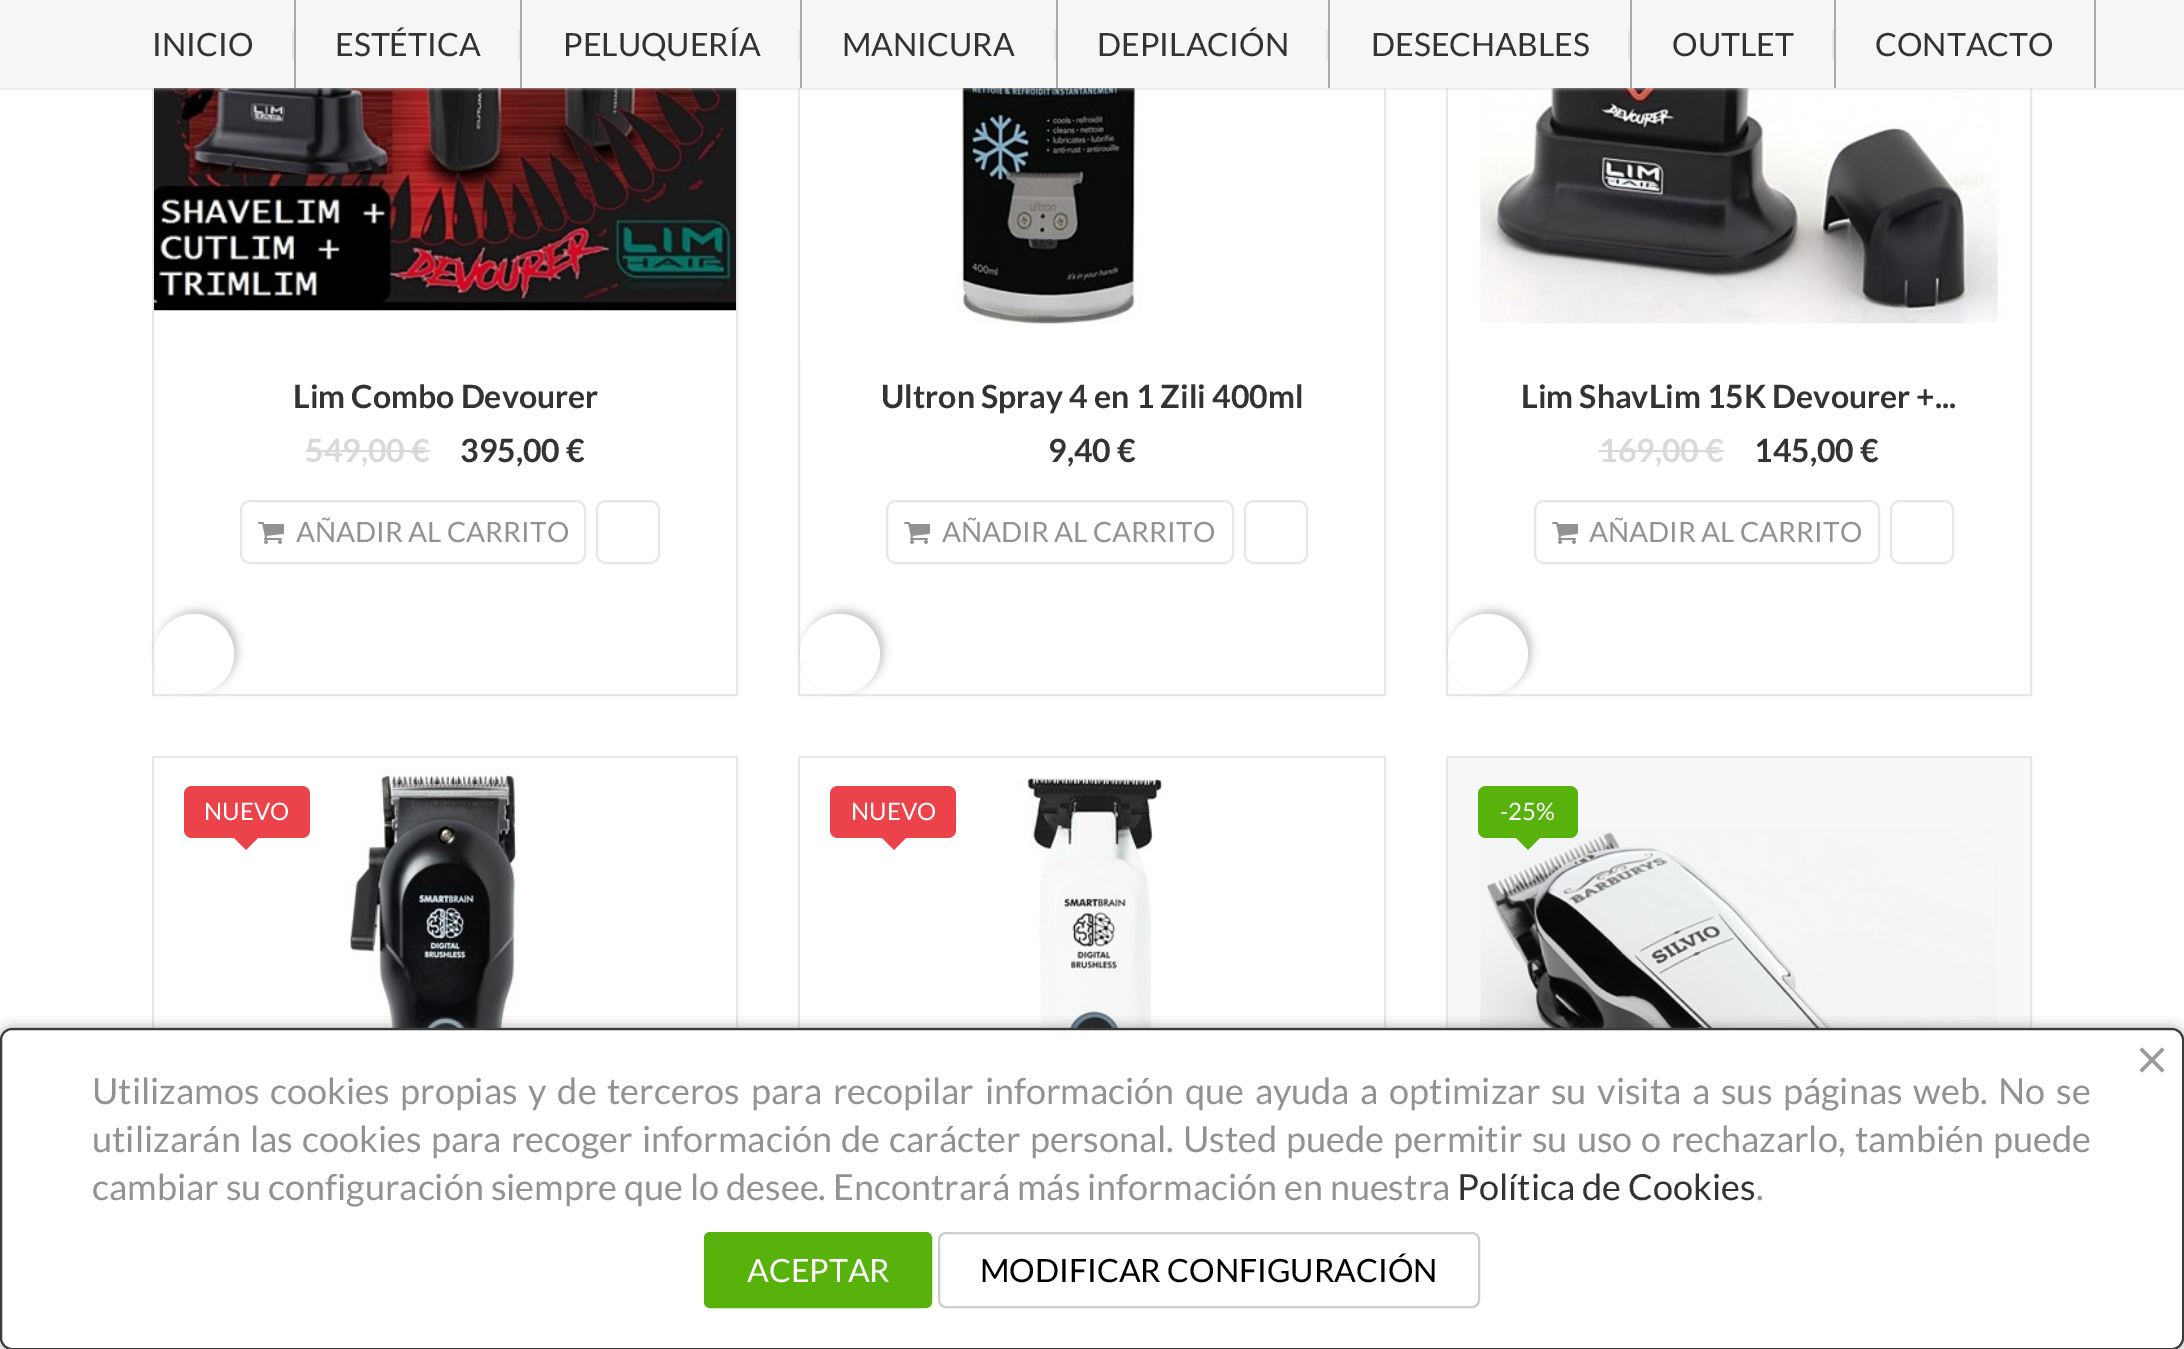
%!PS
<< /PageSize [2184 1349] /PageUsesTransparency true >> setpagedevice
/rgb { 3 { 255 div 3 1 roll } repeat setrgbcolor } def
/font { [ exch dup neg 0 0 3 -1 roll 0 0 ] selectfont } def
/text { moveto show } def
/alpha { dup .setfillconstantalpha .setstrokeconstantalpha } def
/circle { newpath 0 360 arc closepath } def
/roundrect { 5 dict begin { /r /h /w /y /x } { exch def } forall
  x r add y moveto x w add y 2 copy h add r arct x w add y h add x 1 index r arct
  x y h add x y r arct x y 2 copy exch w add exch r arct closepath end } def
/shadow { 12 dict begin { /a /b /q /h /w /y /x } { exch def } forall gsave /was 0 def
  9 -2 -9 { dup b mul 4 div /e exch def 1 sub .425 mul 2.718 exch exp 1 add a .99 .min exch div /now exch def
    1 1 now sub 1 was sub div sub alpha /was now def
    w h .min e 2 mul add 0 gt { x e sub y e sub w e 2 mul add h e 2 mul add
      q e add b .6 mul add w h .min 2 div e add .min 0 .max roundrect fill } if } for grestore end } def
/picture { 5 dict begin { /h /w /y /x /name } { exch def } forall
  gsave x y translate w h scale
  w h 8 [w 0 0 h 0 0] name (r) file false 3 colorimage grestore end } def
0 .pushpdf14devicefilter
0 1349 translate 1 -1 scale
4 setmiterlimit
255 255 255 rgb
0 0 2184 1349 rectfill
231 231 231 rgb
2 setlinewidth
153 -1 584 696 rectstroke
(img_01.rgb) 154 88 582 270 picture
799 -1 586 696 rectstroke
(img_03.rgb) 800 88 584 270 picture
1447 -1 584 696 rectstroke
(img_04.rgb) 1448 88 582 270 picture
208 208 208 rgb
0 0 2184 88 0 2 1 shadow
246 246 246 rgb
0 0 2184 88 rectfill
169 169 169 rgb
294 0 2 88 rectfill
231 231 231 rgb
292 30 2 30 rectfill
169 169 169 rgb
520 0 2 88 rectfill
231 231 231 rgb
518 30 2 30 rectfill
169 169 169 rgb
800 0 2 88 rectfill
231 231 231 rgb
798 30 2 30 rectfill
169 169 169 rgb
1056 0 2 88 rectfill
231 231 231 rgb
1054 30 2 30 rectfill
169 169 169 rgb
1328 0 2 88 rectfill
231 231 231 rgb
1326 30 2 30 rectfill
169 169 169 rgb
1630 0 2 88 rectfill
231 231 231 rgb
1628 30 2 30 rectfill
169 169 169 rgb
1834 0 2 88 rectfill
231 231 231 rgb
1832 30 2 30 rectfill
169 169 169 rgb
2094 0 2 88 rectfill
217 217 217 rgb
306 450 124 2 rectfill
231 231 231 rgb
241 501 344 62 9 roundrect stroke
(img_02.rgb) 258 522 26 22 picture
597 501 62 62 9 roundrect stroke
0 0 0 rgb
158 610 80 80 40 4 0.2 shadow
255 255 255 rgb
194 654 40 circle fill
231 231 231 rgb
887 501 346 62 9 roundrect stroke
(img_02.rgb) 904 522 26 22 picture
1245 501 62 62 9 roundrect stroke
0 0 0 rgb
804 610 80 80 40 4 0.2 shadow
255 255 255 rgb
840 654 40 circle fill
217 217 217 rgb
1598 450 126 2 rectfill
231 231 231 rgb
1535 501 344 62 9 roundrect stroke
(img_02.rgb) 1552 522 26 22 picture
1891 501 62 62 9 roundrect stroke
0 0 0 rgb
1452 610 80 80 40 4 0.2 shadow
255 255 255 rgb
1488 654 40 circle fill
231 231 231 rgb
153 757 584 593 rectstroke
(img_05.rgb) 154 758 582 270 picture
236 66 73 rgb
184 786 126 52 8 roundrect fill
234 838 moveto 24 0 rlineto -12 12 rlineto closepath fill
231 231 231 rgb
799 757 586 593 rectstroke
(img_06.rgb) 800 758 584 270 picture
236 66 73 rgb
830 786 126 52 8 roundrect fill
882 838 moveto 24 0 rlineto -12 12 rlineto closepath fill
231 231 231 rgb
1447 757 584 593 rectstroke
248 248 248 rgb
1448 758 582 270 rectfill
(img_07.rgb) 1480 828 518 200 picture
87 179 12 rgb
1478 786 100 52 8 roundrect fill
1516 838 moveto 24 0 rlineto -12 12 rlineto closepath fill
59 59 59 rgb
4 1032 2176 314 8 7 1 shadow
255 255 255 rgb
1 1029 2182 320 11 roundrect gsave fill grestore
59 59 59 rgb
stroke
153 153 153 rgb
2139.5 1070 moveto 22.5 -22.5 rlineto 2.5 2.5 rlineto -22.5 22.5 rlineto closepath fill
2142 1047.5 moveto 22.5 22.5 rlineto -2.5 2.5 rlineto -22.5 -22.5 rlineto closepath fill
87 179 12 rgb
705 1233 226 74 5 roundrect gsave fill grestore
stroke
204 204 204 rgb
939 1233 540 74 7 roundrect stroke
/Lato-Regular 32 font
51 51 51 rgb
(INICIO) 152 56 text
(ESTÉTICA) 335 56 text
(PELUQUERÍA) 563 56 text
(MANICURA) 842 56 text
(DEPILACIÓN) 1097 56 text
(DESECHABLES) 1371 56 text
(OUTLET) 1672 56 text
(CONTACTO) 1875 56 text
/Lato-Bold 32 font
(Lim Combo Devourer) 293 408 text
217 217 217 rgb
(549,00 €) 305 462 text
51 51 51 rgb
(395,00 €) 460 462 text
/Lato-Regular 28 font
146 146 146 rgb
(AÑADIR AL CARRITO) 296 542 text
/Lato-Bold 32 font
51 51 51 rgb
(Ultron Spray 4 en 1 Zili 400ml) 881 408 text
(9,40 €) 1048 462 text
/Lato-Regular 28 font
146 146 146 rgb
(AÑADIR AL CARRITO) 942 542 text
/Lato-Bold 32 font
51 51 51 rgb
(Lim ShavLim 15K Devourer +...) 1521 408 text
217 217 217 rgb
(169,00 €) 1599 462 text
51 51 51 rgb
(145,00 €) 1754 462 text
/Lato-Regular 28 font
146 146 146 rgb
(AÑADIR AL CARRITO) 1589 542 text
/Lato-Regular 24 font
255 255 255 rgb
(NUEVO) 204 820 text
(NUEVO) 851 820 text
(-25%) 1500 820 text
/Lato-Regular 36 font
146 146 146 rgb
92 1104 moveto 3.75 0 32 (Utilizamos cookies propias y de terceros) widthshow
751 1104 moveto 3.75 0 32 (para recopilar información que ayuda a optimizar su visita a sus páginas web. No se) widthshow
92 1152 moveto 2.25 0 32 (utilizarán las cookies para recoger información de carácter personal. Usted puede permitir su uso o rechazarlo, también puede) widthshow
(cambiar su configuración siempre que lo desee. Encontrará más información en nuestra) 92 1200 text
51 51 51 rgb
(Política de Cookies) 1457 1200 text
146 146 146 rgb
(.) 1756 1200 text
/Lato-Regular 32 font
255 255 255 rgb
(ACEPTAR) 747 1282 text
0 0 0 rgb
(MODIFICAR CONFIGURACIÓN) 980 1282 text
.poppdf14devicefilter showpage
